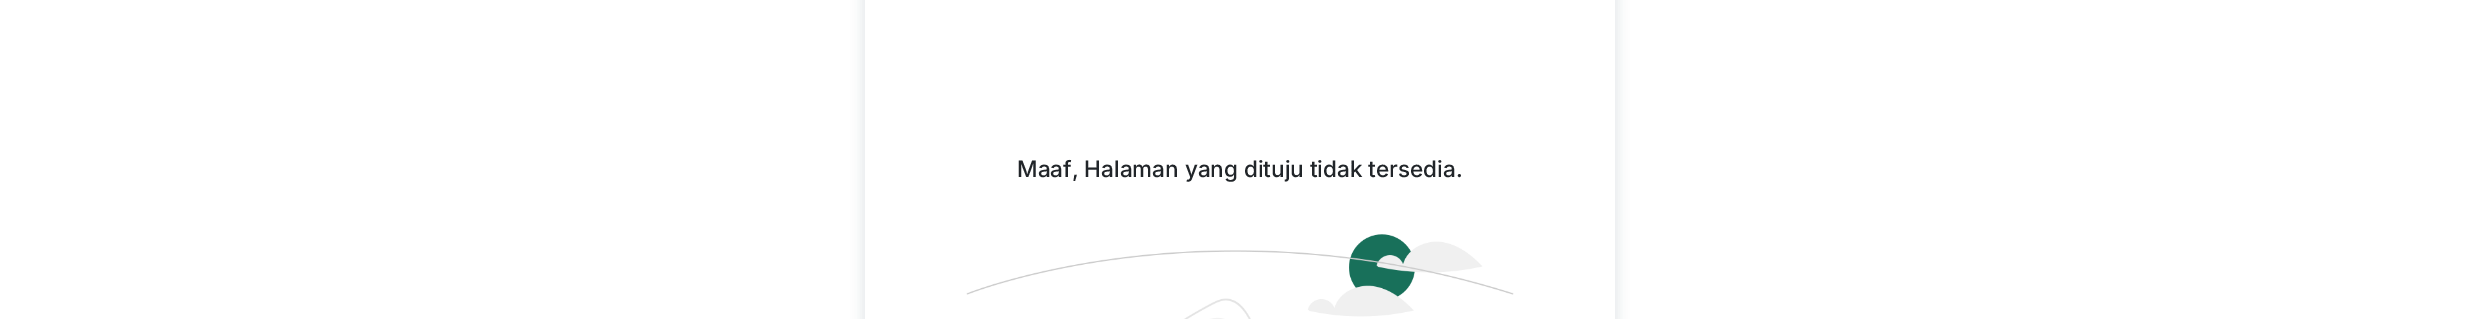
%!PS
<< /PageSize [2479 319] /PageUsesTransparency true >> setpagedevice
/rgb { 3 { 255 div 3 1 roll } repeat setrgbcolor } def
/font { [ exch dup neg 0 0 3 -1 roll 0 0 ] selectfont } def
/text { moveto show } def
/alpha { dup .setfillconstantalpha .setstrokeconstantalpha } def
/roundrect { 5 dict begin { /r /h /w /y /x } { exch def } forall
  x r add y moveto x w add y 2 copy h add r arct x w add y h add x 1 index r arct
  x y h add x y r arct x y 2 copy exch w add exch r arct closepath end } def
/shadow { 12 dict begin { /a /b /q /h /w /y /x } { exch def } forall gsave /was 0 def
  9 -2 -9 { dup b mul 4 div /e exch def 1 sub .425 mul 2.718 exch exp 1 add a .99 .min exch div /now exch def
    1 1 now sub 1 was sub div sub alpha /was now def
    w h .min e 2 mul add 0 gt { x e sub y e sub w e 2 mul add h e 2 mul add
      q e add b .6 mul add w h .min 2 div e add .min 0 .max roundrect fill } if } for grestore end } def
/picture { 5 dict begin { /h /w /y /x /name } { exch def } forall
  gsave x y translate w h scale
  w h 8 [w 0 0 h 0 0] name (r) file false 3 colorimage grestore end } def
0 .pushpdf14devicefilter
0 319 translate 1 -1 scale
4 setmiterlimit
255 255 255 rgb
0 0 2479 319 rectfill
gsave
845 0 moveto 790 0 rlineto 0 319 rlineto -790 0 rlineto closepath 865 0 moveto 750 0 rlineto 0 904 rlineto -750 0 rlineto closepath eoclip newpath
22 65 80 rgb
861 -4 758 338 0 5 0.1 shadow
grestore
(img_01.rgb) 966 234 548 85 picture
/Inter-Medium 22.5 font
33 37 41 rgb
(Maaf, Halaman yang dituju tidak tersedia.) 1017 177 text
.poppdf14devicefilter showpage
